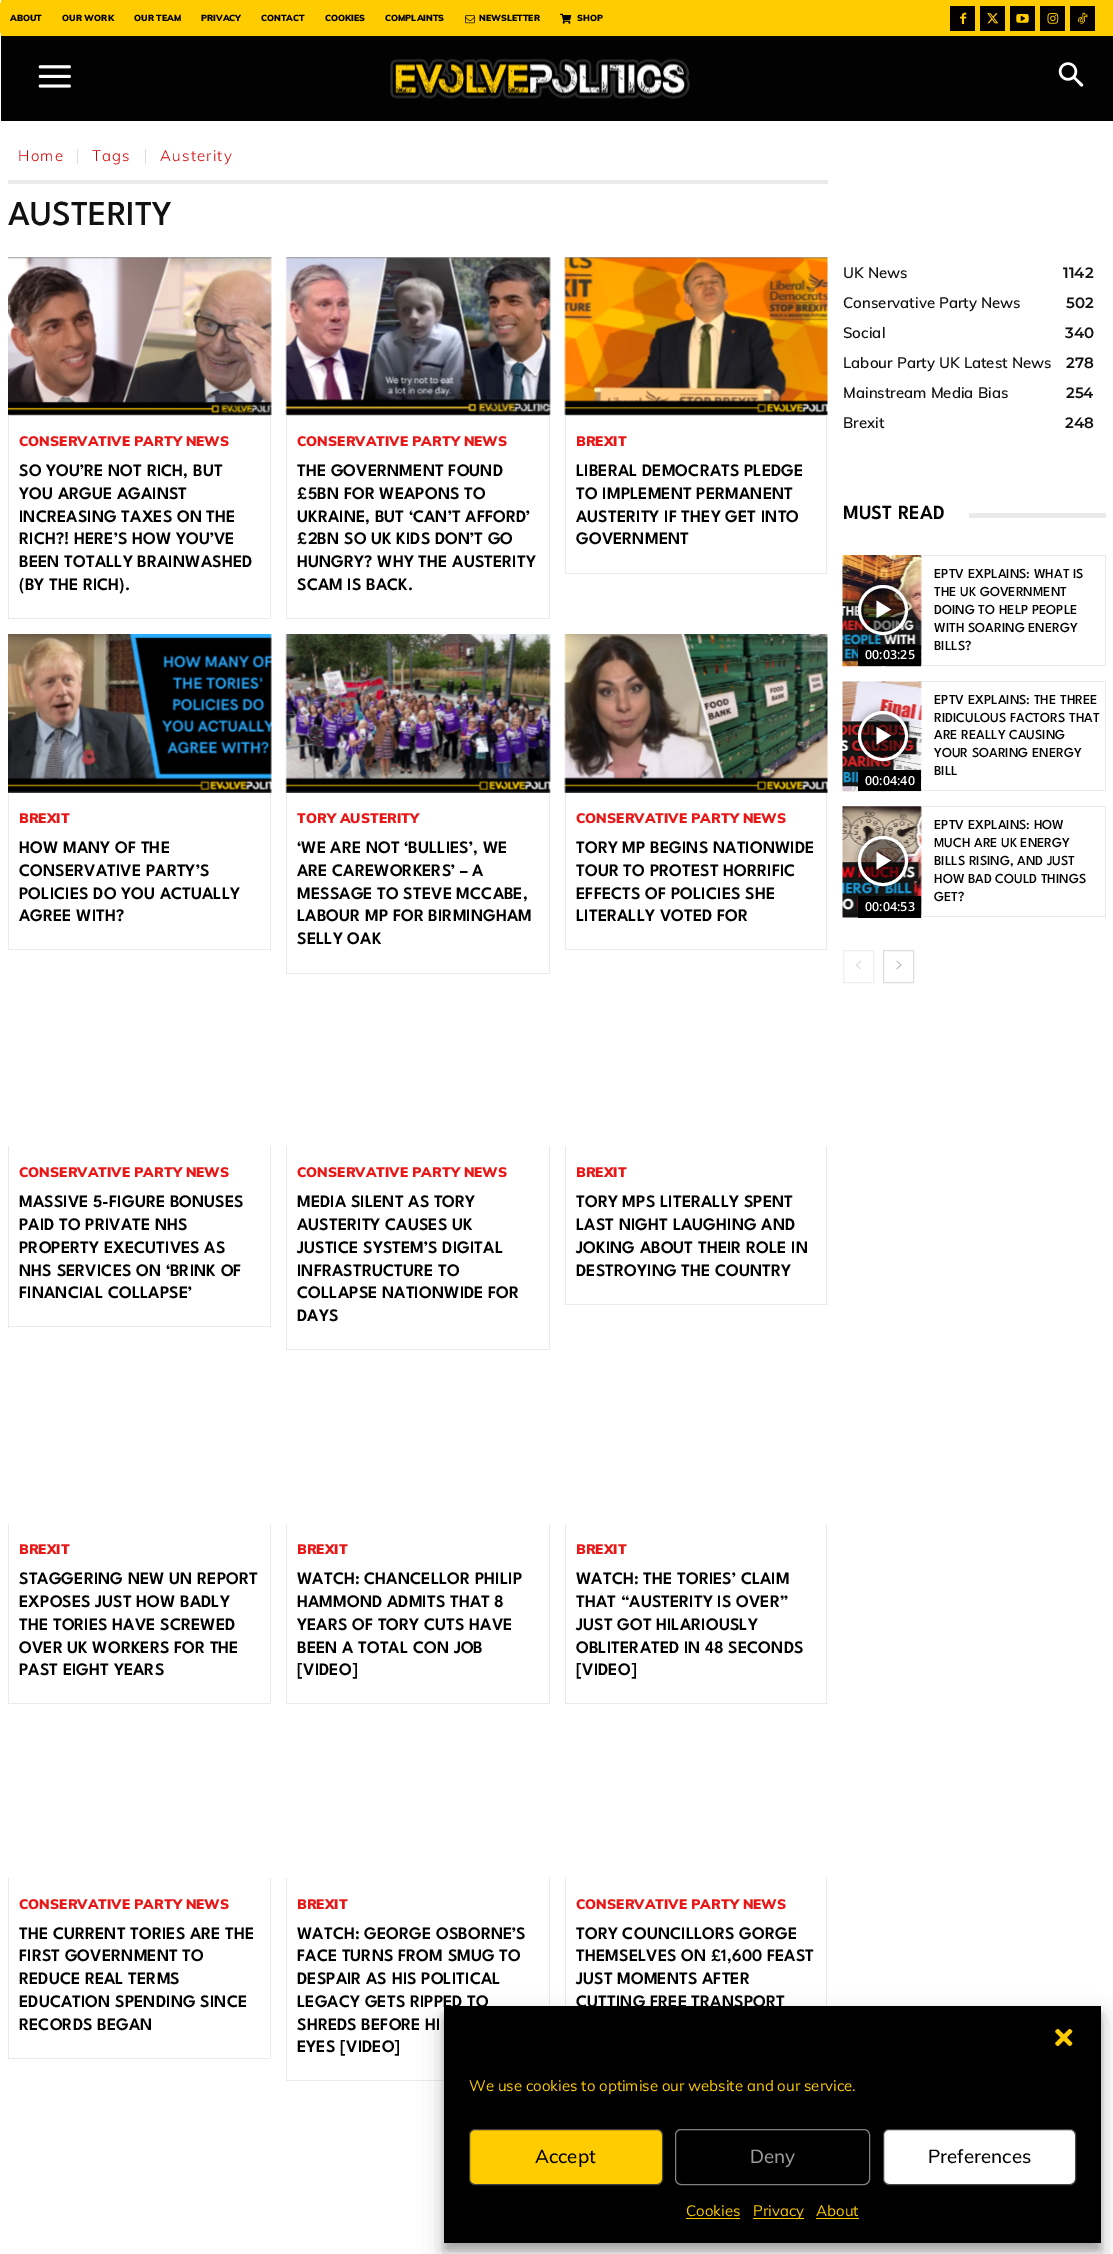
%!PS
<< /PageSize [1113 2254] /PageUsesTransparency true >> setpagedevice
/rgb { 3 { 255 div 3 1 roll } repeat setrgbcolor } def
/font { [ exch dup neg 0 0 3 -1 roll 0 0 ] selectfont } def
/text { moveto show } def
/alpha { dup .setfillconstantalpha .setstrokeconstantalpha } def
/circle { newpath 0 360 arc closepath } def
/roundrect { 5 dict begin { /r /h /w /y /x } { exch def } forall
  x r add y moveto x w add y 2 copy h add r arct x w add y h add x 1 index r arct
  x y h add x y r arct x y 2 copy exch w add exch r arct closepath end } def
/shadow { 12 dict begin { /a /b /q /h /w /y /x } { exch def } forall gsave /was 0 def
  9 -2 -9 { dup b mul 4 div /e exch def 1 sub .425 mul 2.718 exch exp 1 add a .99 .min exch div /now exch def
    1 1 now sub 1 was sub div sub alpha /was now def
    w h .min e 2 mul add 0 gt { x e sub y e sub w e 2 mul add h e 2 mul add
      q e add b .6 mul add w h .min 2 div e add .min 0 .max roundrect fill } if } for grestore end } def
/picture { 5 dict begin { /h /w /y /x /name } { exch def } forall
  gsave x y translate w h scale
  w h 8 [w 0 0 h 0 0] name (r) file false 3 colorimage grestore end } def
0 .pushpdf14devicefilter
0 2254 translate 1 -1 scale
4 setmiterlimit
255 255 255 rgb
0 0 1113 2254 rectfill
255 204 0 rgb
1 0 1112 36 rectfill
0 3 1 30 rectfill
(img_01.rgb) 465 15 10 9 picture
(img_02.rgb) 560 13 12 11 picture
2 0 0 rgb
950 6 25 25 rectfill
(img_03.rgb) 960 12 7 12 picture
980 6 25 25 rectfill
(img_04.rgb) 987 13 12 11 picture
1010 6 25 25 rectfill
(img_05.rgb) 1016 13 13 10 picture
1040 6 25 25 rectfill
(img_06.rgb) 1047 13 12 11 picture
1070 6 25 25 rectfill
(img_07.rgb) 1078 12 10 12 picture
2 2 2 rgb
1 36 1112 85 rectfill
(img_08.rgb) 38 65 33 23 picture
(img_09.rgb) 390 58 300 41 picture
(img_10.rgb) 1058 62 26 25 picture
221 221 221 rgb
77 149 1 15 rectfill
145 149 1 15 rectfill
234 234 234 rgb
8 180 820 4 rectfill
(img_11.rgb) 8 257 264 159 picture
270 415 1 204 rectfill
8 618 263 1 rectfill
8 415 1 204 rectfill
(img_12.rgb) 285 257 266 159 picture
549 415 1 204 rectfill
286 618 264 1 rectfill
286 415 1 204 rectfill
(img_13.rgb) 564 257 264 159 picture
826 415 1 159 rectfill
565 573 263 1 rectfill
565 415 1 159 rectfill
(img_14.rgb) 8 634 264 159 picture
270 793 1 157 rectfill
8 949 263 1 rectfill
8 793 1 157 rectfill
(img_15.rgb) 285 634 266 159 picture
549 793 1 181 rectfill
286 973 264 1 rectfill
286 793 1 181 rectfill
(img_16.rgb) 564 634 264 159 picture
826 793 1 157 rectfill
565 949 263 1 rectfill
565 793 1 157 rectfill
270 1146 1 182 rectfill
8 1326 263 1 rectfill
8 1146 1 182 rectfill
549 1146 1 204 rectfill
286 1349 264 1 rectfill
286 1146 1 204 rectfill
826 1146 1 159 rectfill
565 1304 263 1 rectfill
565 1146 1 159 rectfill
270 1524 1 180 rectfill
8 1703 263 1 rectfill
8 1524 1 180 rectfill
549 1524 1 180 rectfill
286 1703 264 1 rectfill
286 1524 1 180 rectfill
826 1524 1 180 rectfill
565 1703 263 1 rectfill
565 1524 1 180 rectfill
270 1878 1 181 rectfill
8 2058 263 1 rectfill
8 1878 1 181 rectfill
549 1878 1 128 rectfill
286 2080 158 1 rectfill
286 1878 1 203 rectfill
826 1878 1 128 rectfill
565 1878 1 128 rectfill
969 513 137 5 rectfill
(img_17.rgb) 842 555 80 112 picture
921 555 185 1 rectfill
1105 555 1 111 rectfill
921 665 185 1 rectfill
gsave
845 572 moveto 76 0 rlineto 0 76 rlineto -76 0 rlineto closepath 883 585 moveto 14 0 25 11 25 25 rcurveto 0 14 -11 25 -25 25 rcurveto -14 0 -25 -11 -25 -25 rcurveto 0 -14 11 -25 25 -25 rcurveto closepath eoclip newpath
0 0 0 rgb
858 585 50 50 25 4 0.4 shadow
grestore
0.48 alpha
0 0 0 rgb
883 610 23.5 circle fill
1 alpha
255 255 255 rgb
3 setlinewidth
883 610 23.5 circle stroke
876.5 600.5 moveto 0 17.5 rlineto 14.5 -8.5 rlineto closepath fill
0 0 0 rgb
858 645 63 21 rectfill
(img_18.rgb) 842 681 80 111 picture
234 234 234 rgb
921 681 185 1 rectfill
1105 681 1 110 rectfill
921 790 185 1 rectfill
gsave
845 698 moveto 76 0 rlineto 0 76 rlineto -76 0 rlineto closepath 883 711 moveto 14 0 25 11 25 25 rcurveto 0 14 -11 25 -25 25 rcurveto -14 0 -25 -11 -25 -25 rcurveto 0 -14 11 -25 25 -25 rcurveto closepath eoclip newpath
0 0 0 rgb
858 711 50 50 25 4 0.4 shadow
grestore
0.48 alpha
0 0 0 rgb
883 736 23.5 circle fill
1 alpha
255 255 255 rgb
883 736 23.5 circle stroke
876.5 727 moveto 0 17.5 rlineto 14.5 -9 rlineto closepath fill
0 0 0 rgb
858 770 63 21 rectfill
(img_19.rgb) 842 806 80 112 picture
234 234 234 rgb
921 806 185 1 rectfill
1105 806 1 112 rectfill
921 916 185 1 rectfill
gsave
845 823 moveto 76 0 rlineto 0 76 rlineto -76 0 rlineto closepath 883 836 moveto 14 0 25 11 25 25 rcurveto 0 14 -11 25 -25 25 rcurveto -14 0 -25 -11 -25 -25 rcurveto 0 -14 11 -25 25 -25 rcurveto closepath eoclip newpath
0 0 0 rgb
858 836 50 50 25 4 0.4 shadow
grestore
0.48 alpha
0 0 0 rgb
883 861 23.5 circle fill
1 alpha
255 255 255 rgb
883 861 23.5 circle stroke
876.5 852 moveto 0 17.5 rlineto 14.5 -9 rlineto closepath fill
0 0 0 rgb
858 896 63 22 rectfill
238 238 238 rgb
1 setlinewidth
843.5 950.5 30 32 rectstroke
(img_20.rgb) 856 960 6 10 picture
220 220 220 rgb
883.5 950.5 30 32 rectstroke
(img_21.rgb) 896 960 6 10 picture
0 0 0 rgb
444 2014 657 236 0 4 0.23 shadow
444 2019 657 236 0 12.5 0.19 shadow
444 2006 657 237 rectfill
(img_22.rgb) 1055 2028 18 19 picture
255 204 0 rgb
469.5 2129.5 193 55 5.5 roundrect gsave fill grestore
63 63 63 rgb
stroke
129 129 129 rgb
675.5 2129.5 194 55 5.5 roundrect stroke
255 255 255 rgb
883.5 2129.5 192 55 5.5 roundrect gsave fill grestore
68 68 68 rgb
stroke
255 204 0 rgb
686 2218 54 1 rectfill
753 2218 51 1 rectfill
816 2218 43 1 rectfill
/Muli-Black 8.75 font
0 0 0 rgb
(ABOUT) 10 21 text
(OUR WORK) 62 21 text
(OUR TEAM) 134 21 text
(PRIVACY) 201 21 text
(CONTACT) 261 21 text
(COOKIES) 325 21 text
(COMPLAINTS) 385 21 text
(NEWSLETTER) 479 21 text
(SHOP) 577 21 text
/Muli-Light 15 font
214 0 0 rgb
18 161 moveto 1.25 0 (Home) ashow
92 161 moveto 1.25 0 (Tags) ashow
160 161 moveto 1.25 0 (Austerity) ashow
/LeagueSpartan-Medium 35 font
17 17 17 rgb
(AUSTERITY) 8 225 text
/Muli-Black 13.75 font
234 23 23 rgb
(CONSERVATIVE PARTY NEWS) 19 446 text
/LeagueSpartan-SemiBold 17.5 font
0 0 0 rgb
(SO YOU’RE NOT RICH, BUT) 19 476 text
(YOU ARGUE AGAINST) 19 499 text
(INCREASING TAXES ON THE) 19 522 text
(RICH?! HERE’S HOW YOU’VE) 19 544 text
(BEEN TOTALLY BRAINWASHED) 19 567 text
(\(BY THE RICH\).) 19 590 text
/Muli-Black 13.75 font
234 23 23 rgb
(CONSERVATIVE PARTY NEWS) 297 446 text
/LeagueSpartan-SemiBold 17.5 font
0 0 0 rgb
(THE GOVERNMENT FOUND) 297 476 text
(£5BN FOR WEAPONS TO) 297 499 text
(UKRAINE, BUT ‘CAN’T AFFORD’) 297 522 text
(£2BN SO UK KIDS DON’T GO) 297 544 text
(HUNGRY? WHY THE AUSTERITY) 297 567 text
(SCAM IS BACK.) 297 590 text
/Muli-Black 13.75 font
234 23 23 rgb
(BREXIT) 576 446 text
/LeagueSpartan-SemiBold 17.5 font
0 0 0 rgb
(LIBERAL DEMOCRATS PLEDGE) 576 476 text
(TO IMPLEMENT PERMANENT) 576 499 text
(AUSTERITY IF THEY GET INTO) 576 522 text
(GOVERNMENT) 576 544 text
/Muli-Black 13.75 font
234 23 23 rgb
(BREXIT) 19 823 text
/LeagueSpartan-SemiBold 17.5 font
0 0 0 rgb
(HOW MANY OF THE) 19 853 text
(CONSERVATIVE PARTY’S) 19 876 text
(POLICIES DO YOU ACTUALLY) 19 899 text
(AGREE WITH?) 19 921 text
/Muli-Black 13.75 font
234 23 23 rgb
(TORY AUSTERITY) 297 823 text
/LeagueSpartan-SemiBold 17.5 font
0 0 0 rgb
(‘WE ARE NOT ‘BULLIES’, WE) 297 853 text
(ARE CAREWORKERS’ – A) 297 876 text
(MESSAGE TO STEVE MCCABE,) 297 899 text
(LABOUR MP FOR BIRMINGHAM) 297 921 text
(SELLY OAK) 297 944 text
/Muli-Black 13.75 font
234 23 23 rgb
(CONSERVATIVE PARTY NEWS) 576 823 text
/LeagueSpartan-SemiBold 17.5 font
0 0 0 rgb
(TORY MP BEGINS NATIONWIDE) 576 853 text
(TOUR TO PROTEST HORRIFIC) 576 876 text
(EFFECTS OF POLICIES SHE) 576 899 text
(LITERALLY VOTED FOR) 576 921 text
/Muli-Black 13.75 font
234 23 23 rgb
(CONSERVATIVE PARTY NEWS) 19 1177 text
/LeagueSpartan-SemiBold 17.5 font
0 0 0 rgb
(MASSIVE 5-FIGURE BONUSES) 19 1207 text
(PAID TO PRIVATE NHS) 19 1230 text
(PROPERTY EXECUTIVES AS) 19 1253 text
(NHS SERVICES ON ‘BRINK OF) 19 1276 text
(FINANCIAL COLLAPSE’) 19 1298 text
/Muli-Black 13.75 font
234 23 23 rgb
(CONSERVATIVE PARTY NEWS) 297 1177 text
/LeagueSpartan-SemiBold 17.5 font
0 0 0 rgb
(MEDIA SILENT AS TORY) 297 1207 text
(AUSTERITY CAUSES UK) 297 1230 text
(JUSTICE SYSTEM’S DIGITAL) 297 1253 text
(INFRASTRUCTURE TO) 297 1276 text
(COLLAPSE NATIONWIDE FOR) 297 1298 text
(DAYS) 297 1321 text
/Muli-Black 13.75 font
234 23 23 rgb
(BREXIT) 576 1177 text
/LeagueSpartan-SemiBold 17.5 font
0 0 0 rgb
(TORY MPS LITERALLY SPENT) 576 1207 text
(LAST NIGHT LAUGHING AND) 576 1230 text
(JOKING ABOUT THEIR ROLE IN) 576 1253 text
(DESTROYING THE COUNTRY) 576 1276 text
/Muli-Black 13.75 font
234 23 23 rgb
(BREXIT) 19 1554 text
/LeagueSpartan-SemiBold 17.5 font
0 0 0 rgb
(STAGGERING NEW UN REPORT) 19 1584 text
(EXPOSES JUST HOW BADLY) 19 1607 text
(THE TORIES HAVE SCREWED) 19 1630 text
(OVER UK WORKERS FOR THE) 19 1653 text
(PAST EIGHT YEARS) 19 1675 text
/Muli-Black 13.75 font
234 23 23 rgb
(BREXIT) 297 1554 text
/LeagueSpartan-SemiBold 17.5 font
0 0 0 rgb
(WATCH: CHANCELLOR PHILIP) 297 1584 text
(HAMMOND ADMITS THAT 8) 297 1607 text
(YEARS OF TORY CUTS HAVE) 297 1630 text
(BEEN A TOTAL CON JOB) 297 1653 text
([VIDEO]) 297 1675 text
/Muli-Black 13.75 font
234 23 23 rgb
(BREXIT) 576 1554 text
/LeagueSpartan-SemiBold 17.5 font
0 0 0 rgb
(WATCH: THE TORIES’ CLAIM) 576 1584 text
(THAT “AUSTERITY IS OVER”) 576 1607 text
(JUST GOT HILARIOUSLY) 576 1630 text
(OBLITERATED IN 48 SECONDS) 576 1653 text
([VIDEO]) 576 1675 text
/Muli-Black 13.75 font
234 23 23 rgb
(CONSERVATIVE PARTY NEWS) 19 1909 text
/LeagueSpartan-SemiBold 17.5 font
0 0 0 rgb
(THE CURRENT TORIES ARE THE) 19 1939 text
(FIRST GOVERNMENT TO) 19 1961 text
(REDUCE REAL TERMS) 19 1984 text
(EDUCATION SPENDING SINCE) 19 2007 text
(RECORDS BEGAN) 19 2030 text
/Muli-Black 13.75 font
234 23 23 rgb
(BREXIT) 297 1909 text
/LeagueSpartan-SemiBold 17.5 font
0 0 0 rgb
(WATCH: GEORGE OSBORNE’S) 297 1939 text
(FACE TURNS FROM SMUG TO) 297 1961 text
(DESPAIR AS HIS POLITICAL) 297 1984 text
(LEGACY GETS RIPPED TO) 297 2007 text
(SHREDS BEFORE HI) 297 2030 text
(EYES [VIDEO]) 297 2052 text
/Muli-Black 13.75 font
234 23 23 rgb
(CONSERVATIVE PARTY NEWS) 576 1909 text
/LeagueSpartan-SemiBold 17.5 font
0 0 0 rgb
(TORY COUNCILLORS GORGE) 576 1939 text
(THEMSELVES ON £1,600 FEAST) 576 1961 text
(JUST MOMENTS AFTER) 576 1984 text
(CUTTING FREE TRANSPORT) 576 2007 text
/Muli-SemiBold 15 font
17 17 17 rgb
(UK News) 843 278 text
/Montserrat-SemiBold 15 font
(1142) 1063 278 text
/Muli-SemiBold 15 font
(Conservative Party News) 843 308 text
/Montserrat-SemiBold 15 font
(502) 1066 308 text
/Muli-SemiBold 15 font
(Social) 843 338 text
/Montserrat-SemiBold 15 font
(340) 1065 338 text
/Muli-SemiBold 15 font
(Labour Party UK Latest News) 843 368 text
/Montserrat-SemiBold 15 font
(278) 1066 368 text
/Muli-SemiBold 15 font
(Mainstream Media Bias) 843 398 text
/Montserrat-SemiBold 15 font
(254) 1066 398 text
/Muli-SemiBold 15 font
(Brexit) 843 428 text
/Montserrat-SemiBold 15 font
(248) 1065 428 text
/LeagueSpartan-SemiBold 20 font
0 0 0 rgb
(MUST READ) 843 519 text
/LeagueSpartan-Medium 13.75 font
(EPTV EXPLAINS: WHAT IS) 934 578 text
(THE UK GOVERNMENT) 934 596 text
(DOING TO HELP PEOPLE) 934 614 text
(WITH SOARING ENERGY) 934 632 text
(BILLS?) 934 650 text
/OpenSans-SemiBold 12.5 font
255 255 255 rgb
(00:03:25) 865 659 text
/LeagueSpartan-Medium 13.75 font
0 0 0 rgb
(EPTV EXPLAINS: THE THREE) 934 704 text
(RIDICULOUS FACTORS THAT) 934 722 text
(ARE REALLY CAUSING) 934 739 text
(YOUR SOARING ENERGY) 934 757 text
(BILL) 934 775 text
/OpenSans-SemiBold 12.5 font
255 255 255 rgb
(00:04:40) 865 785 text
/LeagueSpartan-Medium 13.75 font
0 0 0 rgb
(EPTV EXPLAINS: HOW) 934 829 text
(MUCH ARE UK ENERGY) 934 847 text
(BILLS RISING, AND JUST) 934 865 text
(HOW BAD COULD THINGS) 934 883 text
(GET?) 934 901 text
/OpenSans-SemiBold 12.5 font
255 255 255 rgb
(00:04:53) 865 911 text
/Muli-Regular 15 font
255 204 0 rgb
(We use cookies to optimise our website and our service.) 469 2091 text
/Muli-Medium 18.75 font
0 0 0 rgb
(Accept) 535 2163 text
154 154 154 rgb
(Deny) 750 2163 text
0 0 0 rgb
(Preferences) 928 2163 text
/Muli-Regular 15 font
255 204 0 rgb
(Cookies) 686 2216 text
(Privacy) 753 2216 text
(About) 816 2216 text
.poppdf14devicefilter showpage
